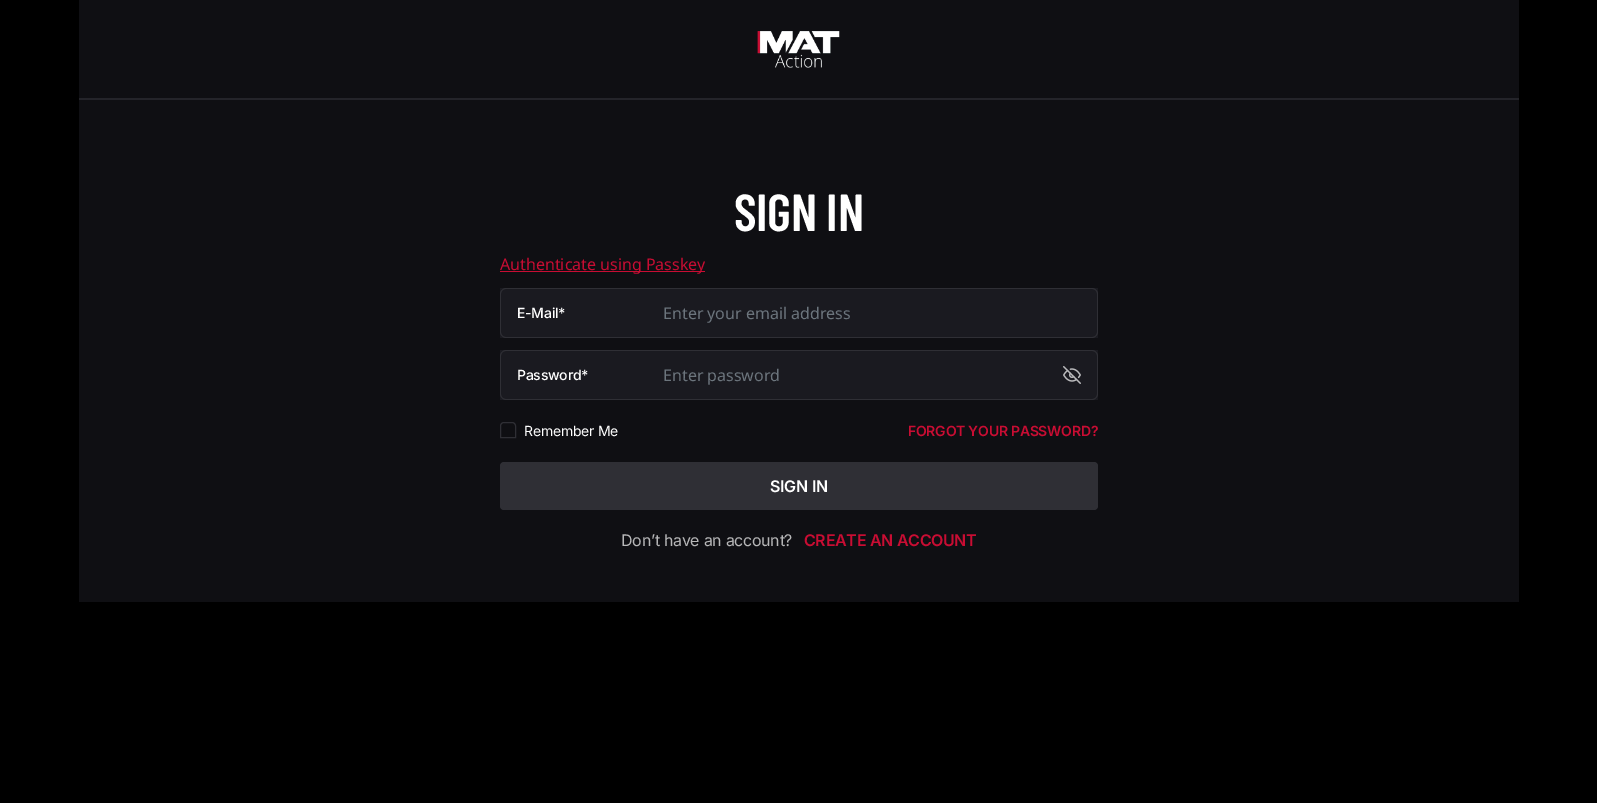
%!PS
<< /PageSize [1597 803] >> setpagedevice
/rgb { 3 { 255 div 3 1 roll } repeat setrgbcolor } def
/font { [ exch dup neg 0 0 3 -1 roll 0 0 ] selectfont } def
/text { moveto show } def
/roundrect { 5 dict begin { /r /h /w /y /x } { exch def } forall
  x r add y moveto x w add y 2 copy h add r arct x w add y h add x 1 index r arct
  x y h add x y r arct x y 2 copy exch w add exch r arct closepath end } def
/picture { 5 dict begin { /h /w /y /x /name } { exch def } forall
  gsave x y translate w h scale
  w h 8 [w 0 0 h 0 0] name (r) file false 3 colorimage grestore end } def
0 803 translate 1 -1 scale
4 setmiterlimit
0 0 0 rgb
0 0 1597 803 rectfill
15 15 19 rgb
79 0 1440 98 rectfill
(img_01.rgb) 757 31 83 37 picture
36 36 42 rgb
79 98 1440 2 rectfill
15 15 19 rgb
79 100 1440 502 rectfill
201 13 51 rgb
500 271 205 1 rectfill
26 26 32 rgb
500 288 598 50 rectfill
47 47 53 rgb
506 288 moveto 146 0 rlineto 0 50 rlineto -146 0 rlineto -3 0 -6 -3 -6 -6 rcurveto 0 -38 rlineto 0 -3 3 -6 6 -6 rcurveto closepath 506 289 moveto 146 0 rlineto 0 48 rlineto -146 0 rlineto -3 0 -5 -2 -5 -5 rcurveto 0 -38 rlineto 0 -3 2 -5 5 -5 rcurveto closepath eofill
26 26 32 rgb
651 288 moveto 441 0 rlineto 3.5 0 6 2.5 6 6 rcurveto 0 38 rlineto 0 3.5 -2.5 6 -6 6 rcurveto -441 0 rlineto closepath fill
47 47 53 rgb
651 288 moveto 441 0 rlineto 3 0 6 3 6 6 rcurveto 0 38 rlineto 0 3 -3 6 -6 6 rcurveto -441 0 rlineto closepath 651 289 moveto 441 0 rlineto 3 0 5 2 5 5 rcurveto 0 38 rlineto 0 3 -2 5 -5 5 rcurveto -441 0 rlineto closepath eofill
26 26 32 rgb
500 350 598 50 rectfill
47 47 53 rgb
506 350 moveto 146 0 rlineto 0 50 rlineto -146 0 rlineto -3 0 -6 -3 -6 -6 rcurveto 0 -38 rlineto 0 -3 3 -6 6 -6 rcurveto closepath 506 351 moveto 146 0 rlineto 0 48 rlineto -146 0 rlineto -3 0 -5 -2 -5 -5 rcurveto 0 -38 rlineto 0 -3 2 -5 5 -5 rcurveto closepath eofill
1047 350 moveto 45 0 rlineto 3 0 6 3 6 6 rcurveto 0 38 rlineto 0 3 -3 6 -6 6 rcurveto -45 0 rlineto closepath 1047 351 moveto 45 0 rlineto 3 0 5 2 5 5 rcurveto 0 38 rlineto 0 3 -2 5 -5 5 rcurveto -45 0 rlineto closepath eofill
651 350 397 1 rectfill
651 399 397 1 rectfill
(img_02.rgb) 1063 366 18 18 picture
504 422.5 moveto 8 0 rlineto 2 0 3.5 1.5 3.5 3.5 rcurveto 0 11.5 rlineto -15 0 rlineto 0 -11.5 rlineto 0 -2 1.5 -3.5 3.5 -3.5 rcurveto closepath stroke
500 462 598 48 4 roundrect fill
/BarlowCondensed-SemiBold 52 font
255 255 255 rgb
734 231 moveto -0.5 0 (SIGN IN) ashow
/NotoSans-Regular 16 font
201 13 51 rgb
(Authenticate using Passkey) 500 270 text
/Inter-Medium 14 font
255 255 255 rgb
517 318 moveto -0.25 0 (E-Mail*) ashow
/NotoSans-Regular 16 font
108 117 125 rgb
(Enter your email address) 663 319 text
/Inter-Medium 14 font
255 255 255 rgb
517 380 moveto -0.25 0 (Password*) ashow
/NotoSans-Regular 16 font
108 117 125 rgb
(Enter password) 663 381 text
/Inter-Regular 14 font
255 255 255 rgb
524 436 moveto -0.25 0 (Remember Me) ashow
/Inter-SemiBold 14 font
201 13 51 rgb
908 436 moveto -0.25 0 (FORGOT YOUR PASSWORD?) ashow
/Inter-SemiBold 16 font
255 255 255 rgb
770 492 moveto -0.3 0 (SIGN IN) ashow
/Inter-Regular 16 font
183 183 184 rgb
621 546 moveto -0.3 0 (Don’t have an account?) ashow
/Inter-SemiBold 16 font
201 13 51 rgb
804 546 moveto -0.3 0 (CREATE AN ACCOUNT) ashow
showpage
